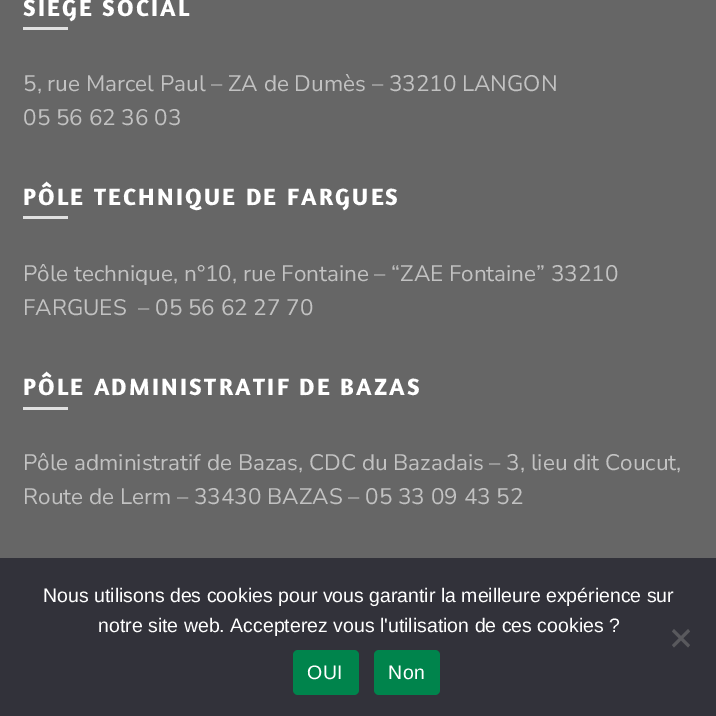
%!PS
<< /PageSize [716 716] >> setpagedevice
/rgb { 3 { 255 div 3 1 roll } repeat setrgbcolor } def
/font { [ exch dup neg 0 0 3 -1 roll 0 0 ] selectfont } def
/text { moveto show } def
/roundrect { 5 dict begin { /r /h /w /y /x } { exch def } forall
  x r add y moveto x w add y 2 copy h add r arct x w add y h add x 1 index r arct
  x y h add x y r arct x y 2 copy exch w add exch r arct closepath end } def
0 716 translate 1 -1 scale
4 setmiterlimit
102 102 102 rgb
0 0 716 716 rectfill
224 224 224 rgb
23 27 45 3 rectfill
23 216 45 3 rectfill
23 407 45 3 rectfill
50 50 58 rgb
0 558 716 158 rectfill
89 89 93 rgb
688 629 moveto 2 2.5 rlineto -16 16 rlineto -2 -2.5 rlineto closepath fill
672 631.5 moveto 2 -2.5 rlineto 16 16 rlineto -2 2.5 rlineto closepath fill
0 132 76 rgb
293 650 66 45 5 roundrect fill
374 650 66 45 5 roundrect fill
/Amaranth-Bold 24 font
255 255 255 rgb
23 16 moveto 2.25 0 (SIÈGE SOCIAL) ashow
/NunitoSans-Regular 22.5 font
194 194 194 rgb
(5, rue Marcel Paul – ZA de Dumès – 33210 LANGON) 23 91 text
(05 56 62 36 03) 23 125 text
/Amaranth-Bold 24 font
255 255 255 rgb
23 205 moveto 2.25 0 (PÔLE TECHNIQUE DE FARGUES) ashow
/NunitoSans-Regular 22.5 font
194 194 194 rgb
(Pôle technique, n°10, rue Fontaine – “ZAE Fontaine” 33210) 23 281 text
(FARGUES  – 05 56 62 27 70) 23 315 text
/Amaranth-Bold 24 font
255 255 255 rgb
23 395 moveto 2.25 0 (PÔLE ADMINISTRATIF DE BAZAS) ashow
/NunitoSans-Regular 22.5 font
194 194 194 rgb
(Pôle administratif de Bazas, CDC du Bazadais – 3, lieu dit Coucut,) 23 470 text
(Route de Lerm – 33430 BAZAS – 05 33 09 43 52) 23 504 text
/LiberationSans-Regular 19.5 font
255 255 255 rgb
(Nous utilisons des cookies pour vous garantir la meilleure expérience sur) 43 602 text
(notre site web. Accepterez vous l'utilisation de ces cookies ?) 98 632 text
307 679 moveto 0.5 0 (OUI) ashow
388 679 moveto 0.5 0 (Non) ashow
showpage
